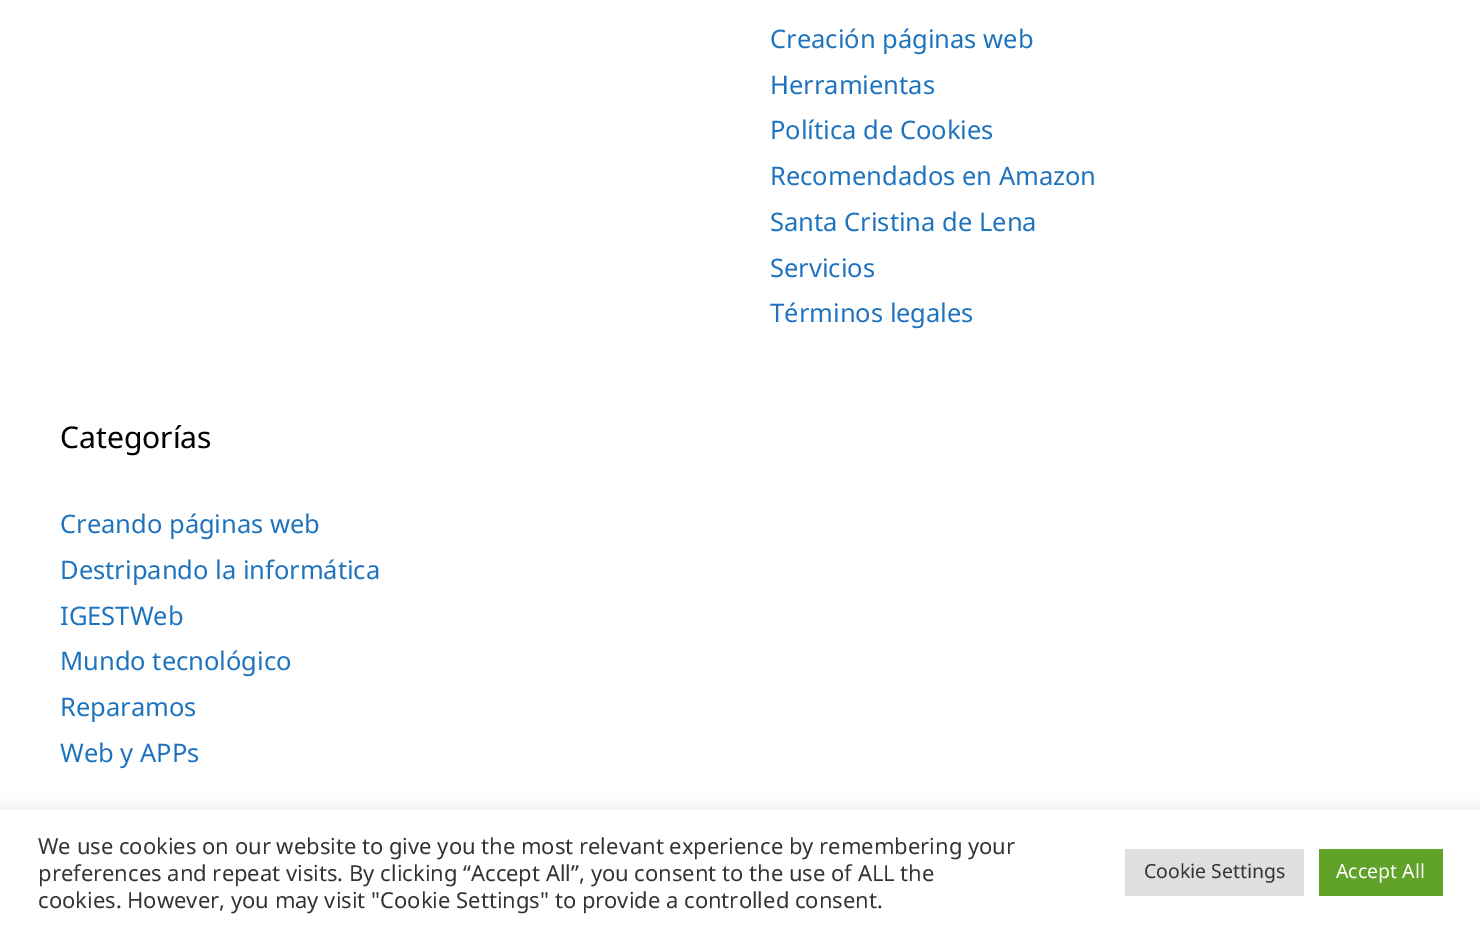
%!PS
<< /PageSize [1480 933] /PageUsesTransparency true >> setpagedevice
/rgb { 3 { 255 div 3 1 roll } repeat setrgbcolor } def
/font { [ exch dup neg 0 0 3 -1 roll 0 0 ] selectfont } def
/text { moveto show } def
/alpha { dup .setfillconstantalpha .setstrokeconstantalpha } def
/roundrect { 5 dict begin { /r /h /w /y /x } { exch def } forall
  x r add y moveto x w add y 2 copy h add r arct x w add y h add x 1 index r arct
  x y h add x y r arct x y 2 copy exch w add exch r arct closepath end } def
/shadow { 12 dict begin { /a /b /q /h /w /y /x } { exch def } forall gsave /was 0 def
  9 -2 -9 { dup b mul 4 div /e exch def 1 sub .425 mul 2.718 exch exp 1 add a .99 .min exch div /now exch def
    1 1 now sub 1 was sub div sub alpha /was now def
    w h .min e 2 mul add 0 gt { x e sub y e sub w e 2 mul add h e 2 mul add
      q e add b .6 mul add w h .min 2 div e add .min 0 .max roundrect fill } if } for grestore end } def
0 .pushpdf14devicefilter
0 933 translate 1 -1 scale
4 setmiterlimit
255 255 255 rgb
0 0 1480 933 rectfill
172 171 171 rgb
0 809 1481 123 0 7.5 0.3 shadow
255 255 255 rgb
0 810 1480 123 rectfill
222 223 224 rgb
1125 849 179 47 rectfill
97 162 41 rgb
1319 849 124 47 rectfill
/NotoSans-Regular 25.5 font
30 115 190 rgb
(Creación páginas web) 770 48 text
(Herramientas) 770 94 text
(Política de Cookies) 770 139 text
(Recomendados en Amazon) 770 185 text
(Santa Cristina de Lena) 770 231 text
(Servicios) 770 277 text
(Términos legales) 770 322 text
/NotoSans-Regular 30 font
0 0 0 rgb
(Categorías) 60 448 text
/NotoSans-Regular 25.5 font
30 115 190 rgb
(Creando páginas web) 60 533 text
(Destripando la informática) 60 579 text
(IGESTWeb) 60 625 text
(Mundo tecnológico) 60 670 text
(Reparamos) 60 716 text
(Web y APPs) 60 762 text
/NotoSans-Regular 22 font
51 51 51 rgb
(We use cookies on our website to give you the most relevant experience by remembering your) 38 854 text
(preferences and repeat visits. By clicking “Accept All”, you consent to the use of ALL the) 38 881 text
(cookies. However, you may visit "Cookie Settings" to provide a controlled consent.) 38 908 text
/NotoSans-Regular 19.5 font
(Cookie Settings) 1144 878 text
255 255 255 rgb
(Accept All) 1336 878 text
.poppdf14devicefilter showpage
